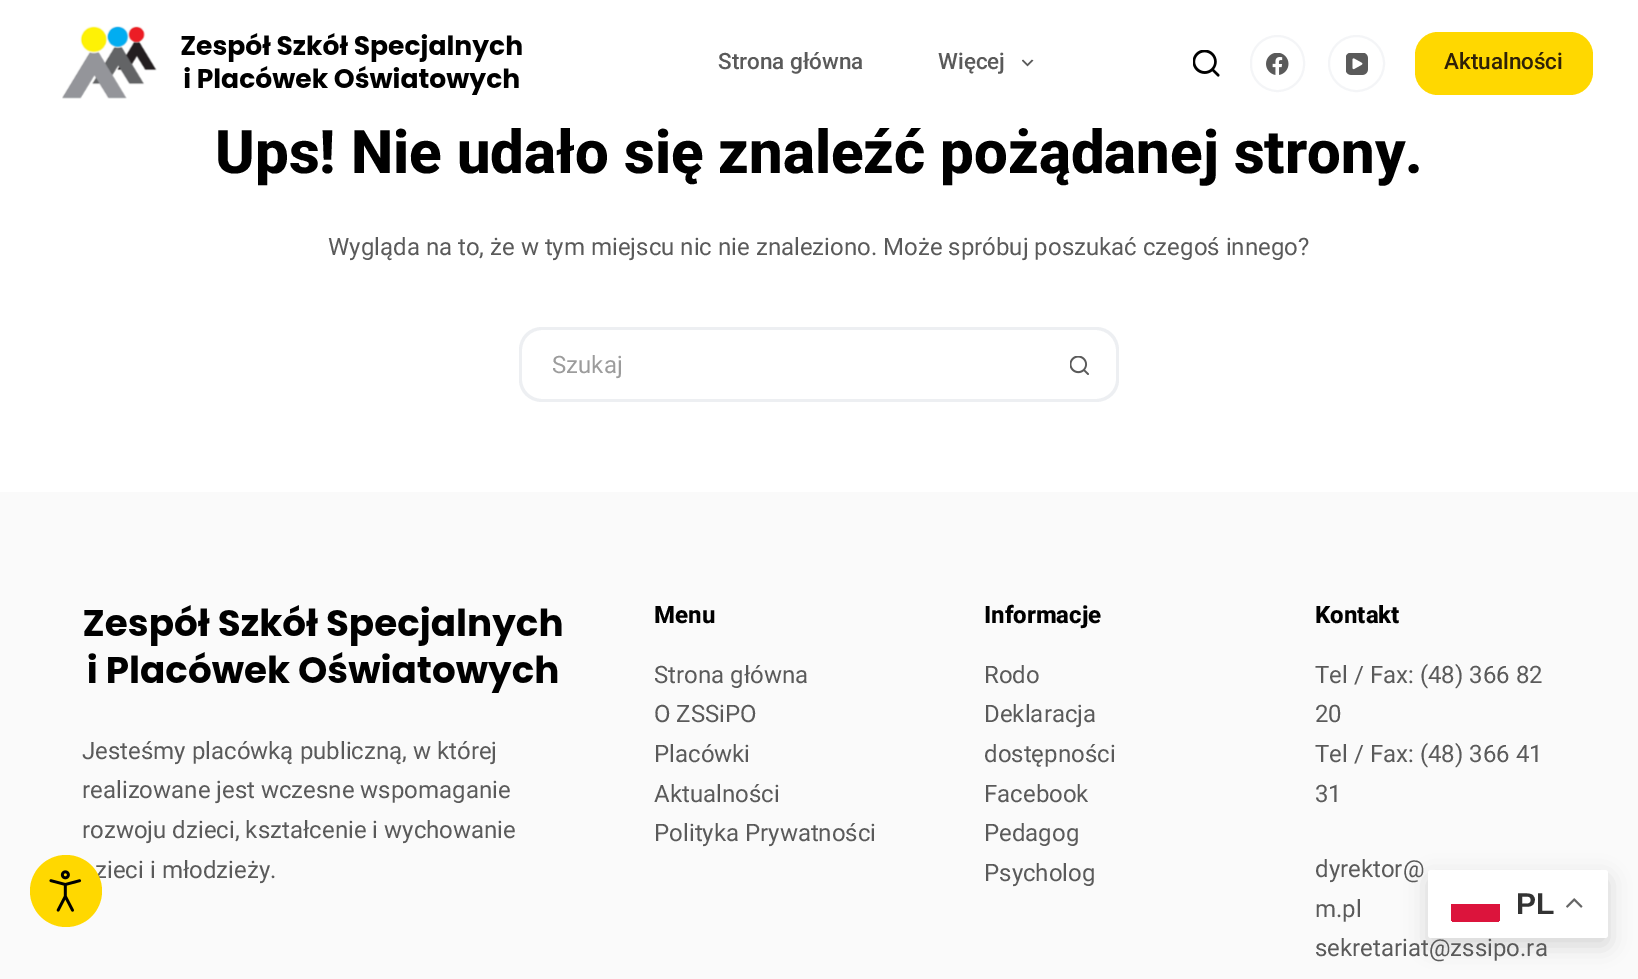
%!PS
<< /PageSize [1638 979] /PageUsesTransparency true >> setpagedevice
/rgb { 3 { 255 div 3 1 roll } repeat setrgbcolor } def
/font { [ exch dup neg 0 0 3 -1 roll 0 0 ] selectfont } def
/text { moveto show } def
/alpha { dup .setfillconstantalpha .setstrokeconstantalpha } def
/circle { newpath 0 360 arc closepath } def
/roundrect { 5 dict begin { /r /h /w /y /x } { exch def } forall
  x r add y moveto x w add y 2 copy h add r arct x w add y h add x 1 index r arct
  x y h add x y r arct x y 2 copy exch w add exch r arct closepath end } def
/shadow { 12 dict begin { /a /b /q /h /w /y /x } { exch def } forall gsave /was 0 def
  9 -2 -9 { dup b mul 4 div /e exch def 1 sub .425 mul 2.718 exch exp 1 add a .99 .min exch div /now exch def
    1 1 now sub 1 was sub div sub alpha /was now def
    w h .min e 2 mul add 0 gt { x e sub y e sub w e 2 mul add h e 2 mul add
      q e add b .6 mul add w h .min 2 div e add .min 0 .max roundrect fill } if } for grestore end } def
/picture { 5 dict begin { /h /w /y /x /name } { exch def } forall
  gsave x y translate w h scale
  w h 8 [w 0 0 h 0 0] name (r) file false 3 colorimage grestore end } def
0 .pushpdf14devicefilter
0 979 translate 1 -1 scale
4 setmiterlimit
255 255 255 rgb
0 0 1638 979 rectfill
(img_02.rgb) 62 26 460 73 picture
(img_03.rgb) 1022 59 12 8 picture
(img_04.rgb) 1193 50 27 27 picture
244 245 247 rgb
2 setlinewidth
1251 36 53 55 26.5 roundrect stroke
(img_05.rgb) 1266 53 23 22 picture
1356.5 63.5 27.5 circle stroke
(img_06.rgb) 1346 53 22 22 picture
255 216 0 rgb
1415 32 178 63 23 roundrect fill
237 239 242 rgb
542 327 moveto 502 0 rlineto 0 75 rlineto -502 0 rlineto -13 0 -23 -10 -23 -22 rcurveto 0 -30 rlineto 0 -13 10 -23 23 -23 rcurveto closepath 542 330 moveto 502 0 rlineto 0 69 rlineto -502 0 rlineto -11 0 -20 -9 -20 -19 rcurveto 0 -30 rlineto 0 -11 9 -20 20 -20 rcurveto closepath eofill
1044 327 moveto 52 0 rlineto 13 0 23 10 23 23 rcurveto 0 30 rlineto 0 12 -10 22 -23 22 rcurveto -52 0 rlineto closepath 1044 330 moveto 52 0 rlineto 11 0 20 9 20 20 rcurveto 0 30 rlineto 0 10 -9 19 -20 19 rcurveto -52 0 rlineto closepath eofill
(img_07.rgb) 1070 356 19 19 picture
250 250 250 rgb
0 492 1638 487 rectfill
(img_08.rgb) 84 605 478 88 picture
0 0 0 rgb
1428 878 180 67 3 11 0.15 shadow
255 255 255 rgb
1428 870 180 68 3 roundrect fill
(img_09.rgb) 1566 898 17 10 picture
gsave
1451 885 49 38 5 roundrect clip newpath
220 20 60 rgb
1451 904 49 18 rectfill
grestore
/Roboto-Medium 22.5 font
90 90 90 rgb
(Strona główna) 718 69 text
(Więcej) 938 69 text
47 34 7 rgb
(Aktualności) 1444 69 text
/Roboto-ExtraBold 60 font
0 0 0 rgb
(Ups! Nie udało się znaleźć pożądanej strony.) 215 173 text
/Roboto-Regular 24 font
90 90 90 rgb
(Wygląda na to, że w tym miejscu nic nie znaleziono. Może spróbuj poszukać czegoś innego?) 328 255 text
156 156 156 rgb
(Szukaj) 552 373 text
90 90 90 rgb
(Jesteśmy placówką publiczną, w której) 82 759 text
(realizowane jest wczesne wspomaganie) 82 798 text
(rozwoju dzieci, kształcenie i wychowanie) 82 838 text
(zieci i młodzieży.) 95 878 text
255 216 0 rgb
66 891 36 circle fill
(img_01.rgb) 49 870 33 42 picture
/Roboto-ExtraBold 24 font
0 0 0 rgb
(Menu) 654 623 text
/Roboto-Regular 24 font
90 90 90 rgb
(Strona główna) 654 683 text
(O ZSSiPO) 654 722 text
(Placówki) 654 762 text
(Aktualności) 654 802 text
(Polityka Prywatności) 654 841 text
/Roboto-ExtraBold 24 font
0 0 0 rgb
(Informacje) 984 623 text
/Roboto-Regular 24 font
90 90 90 rgb
(Rodo) 984 683 text
(Deklaracja) 984 722 text
(dostępności) 984 762 text
(Facebook) 984 802 text
(Pedagog) 984 841 text
(Psycholog) 984 881 text
/Roboto-ExtraBold 24 font
0 0 0 rgb
(Kontakt) 1315 623 text
/Roboto-Regular 24 font
90 90 90 rgb
(Tel / Fax: \(48\) 366 82) 1315 683 text
(20) 1315 722 text
(Tel / Fax: \(48\) 366 41) 1315 762 text
(31) 1315 802 text
(dyrektor@) 1315 877 text
(m.pl) 1315 917 text
(sekretariat@zssipo.ra) 1315 956 text
/LiberationSans-Bold 30 font
51 51 51 rgb
(PL) 1516 914 text
.poppdf14devicefilter showpage
